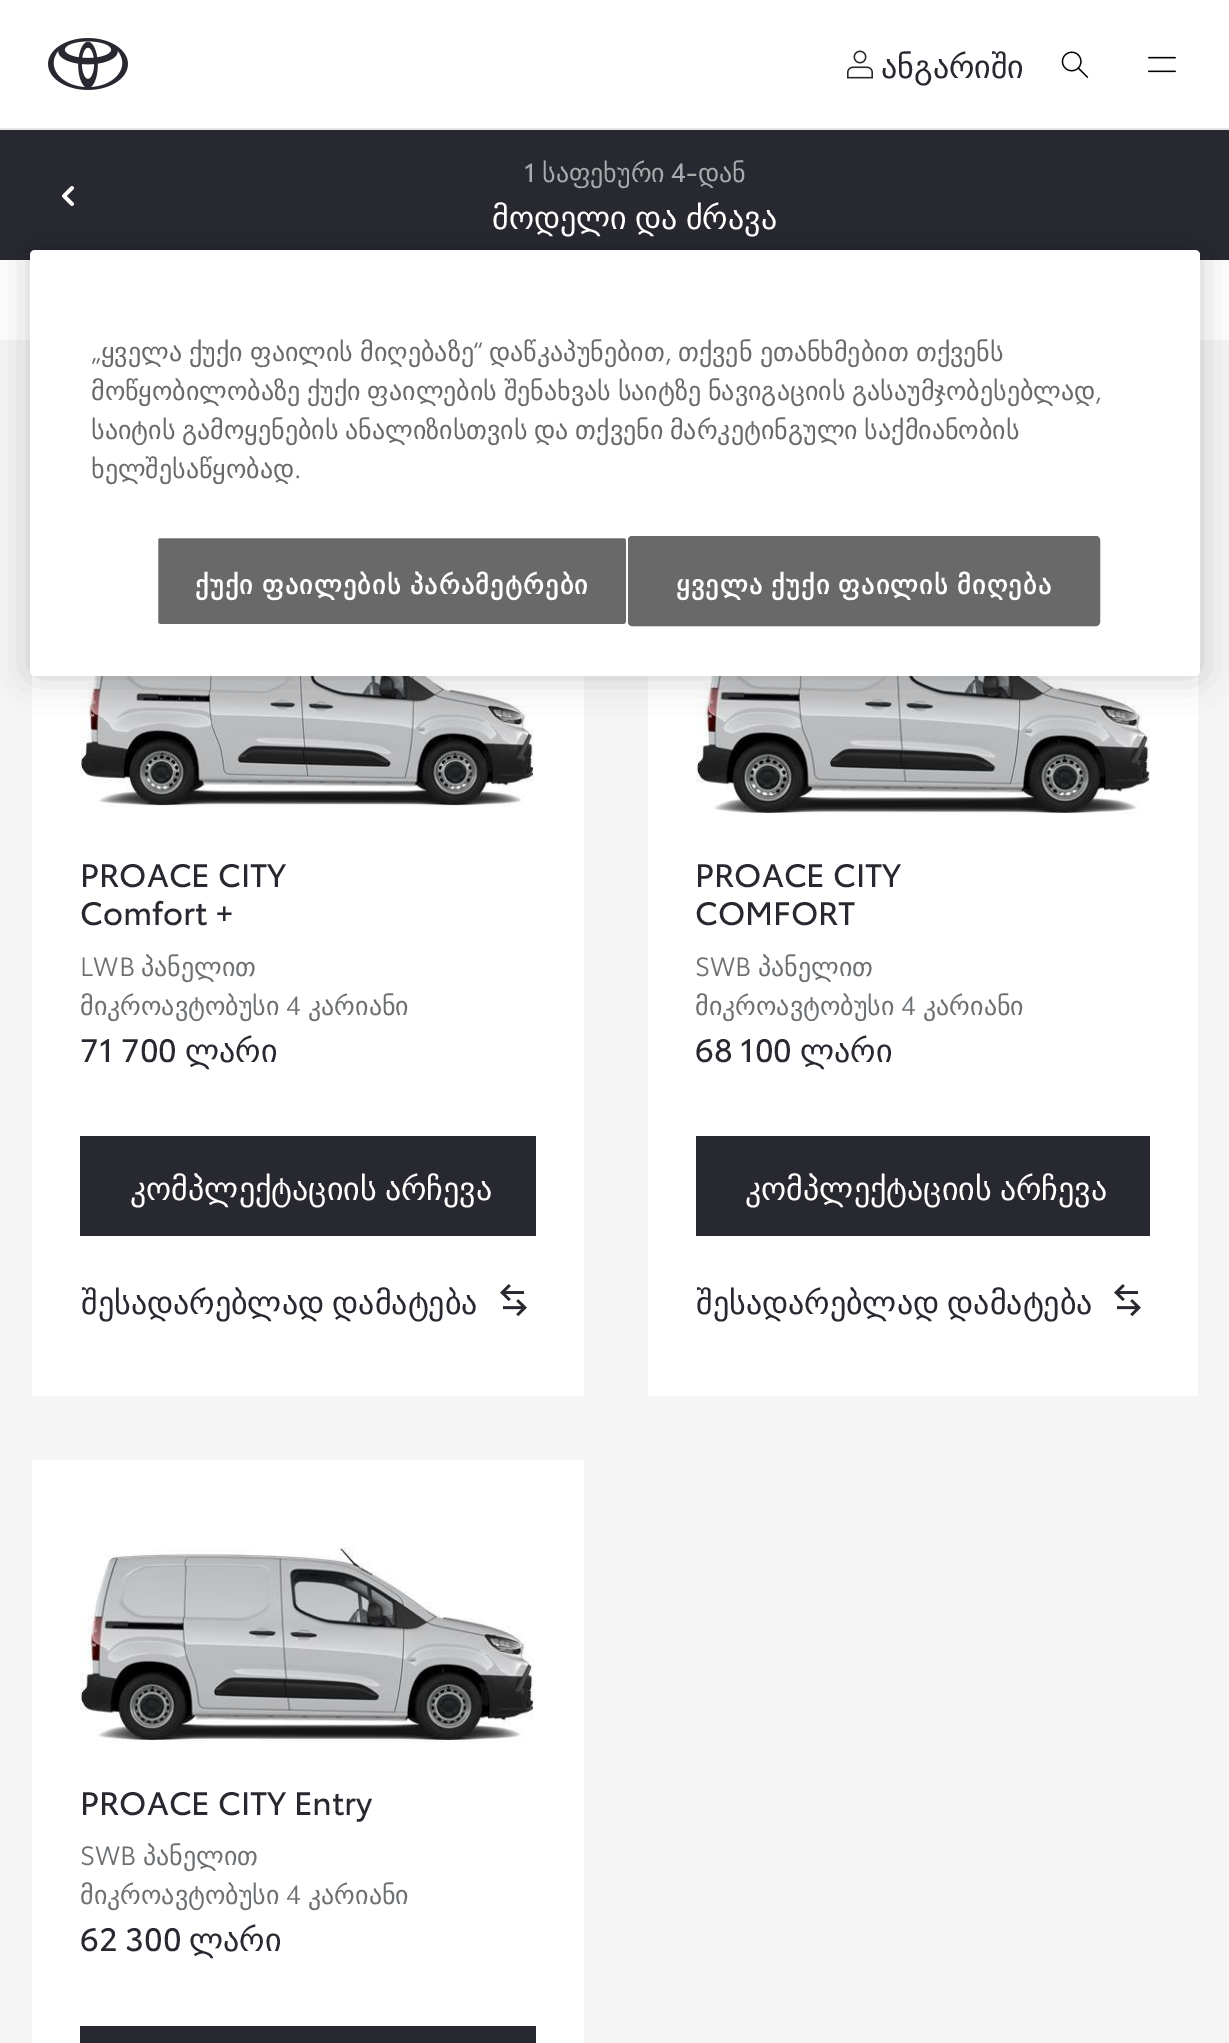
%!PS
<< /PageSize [1229 2043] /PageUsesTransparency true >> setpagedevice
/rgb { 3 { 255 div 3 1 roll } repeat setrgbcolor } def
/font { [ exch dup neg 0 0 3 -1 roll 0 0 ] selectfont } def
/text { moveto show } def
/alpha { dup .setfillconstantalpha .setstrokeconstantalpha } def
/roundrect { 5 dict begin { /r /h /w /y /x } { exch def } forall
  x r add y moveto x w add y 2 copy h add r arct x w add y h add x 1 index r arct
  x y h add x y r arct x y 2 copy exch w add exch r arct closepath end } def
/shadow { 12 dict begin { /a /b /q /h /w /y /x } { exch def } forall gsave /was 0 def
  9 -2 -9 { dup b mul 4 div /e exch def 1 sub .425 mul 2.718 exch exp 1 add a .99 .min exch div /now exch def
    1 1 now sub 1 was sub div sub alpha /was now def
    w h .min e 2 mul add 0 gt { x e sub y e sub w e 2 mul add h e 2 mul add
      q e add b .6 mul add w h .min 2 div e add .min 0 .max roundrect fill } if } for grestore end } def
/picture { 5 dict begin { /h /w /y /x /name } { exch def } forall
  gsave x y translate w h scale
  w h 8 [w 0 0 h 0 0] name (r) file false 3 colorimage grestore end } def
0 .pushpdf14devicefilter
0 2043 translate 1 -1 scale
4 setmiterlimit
255 255 255 rgb
0 0 1229 2043 rectfill
(img_01.rgb) 48 38 80 52 picture
(img_02.rgb) 847 50 26 29 picture
(img_03.rgb) 1061 51 28 27 picture
(img_04.rgb) 1148 56 28 17 picture
228 228 228 rgb
0 128 1229 2 rectfill
40 40 48 rgb
0 130 1229 130 rectfill
(img_05.rgb) 62 186 12 20 picture
245 245 245 rgb
0 340 1229 1703 rectfill
255 255 255 rgb
32 675 552 721 rectfill
(img_06.rgb) 80 676 454 131 picture
40 40 48 rgb
80 1136 456 100 rectfill
(img_07.rgb) 500 1284 27 33 picture
255 255 255 rgb
648 675 550 721 rectfill
(img_08.rgb) 696 676 454 139 picture
40 40 48 rgb
696 1136 454 100 rectfill
(img_07.rgb) 1114 1284 27 33 picture
255 255 255 rgb
32 1460 552 583 rectfill
(img_09.rgb) 80 1547 454 196 picture
40 40 48 rgb
80 2026 456 17 rectfill
0 0 0 rgb
30 250 1170 426 5 18 0.2 shadow
255 255 255 rgb
30 250 1170 426 5 roundrect fill
105 105 105 rgb
157 537 470 88 3 roundrect gsave fill grestore
255 255 255 rgb
2 setlinewidth
stroke
105 105 105 rgb
629 537 470 88 3 roundrect gsave fill grestore
stroke
/DejaVuSans-Regular 32 font
40 40 48 rgb
(ანგარიში) 881 78 text
/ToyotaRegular-Regular 26 font
168 170 172 rgb
(1) 524 182 text
/DejaVuSans-Regular 26 font
(საფეხური) 542 182 text
/ToyotaRegular-Regular 26 font
(4-) 671 182 text
/DejaVuSans-Regular 26 font
(დან) 698 182 text
/DejaVuSans-Regular 32 font
255 255 255 rgb
492 229 moveto -2 0 32 (მოდელი და ძრავა) widthshow
/ToyotaRegular-Regular 32 font
40 40 48 rgb
(PROACE CITY) 80 887 text
(Comfort +) 80 925 text
/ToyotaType-Regular 26 font
108 112 115 rgb
(LWB) 80 976 text
/DejaVuSans-Regular 26 font
(პანელით) 141 976 text
(მიკროავტობუსი) 80 1015 text
/ToyotaType-Regular 26 font
(4) 286 1015 text
/DejaVuSans-Regular 26 font
(კარიანი) 308 1015 text
/ToyotaRegular-Regular 32 font
40 40 48 rgb
(71 700) 80 1062 text
/DejaVuSans-Regular 32 font
(ლარი) 185 1062 text
255 255 255 rgb
130 1200 moveto -2 0 32 (კომპლექტაციის არჩევა) widthshow
40 40 48 rgb
81 1314 moveto -2 0 32 (შესადარებლად დამატება) widthshow
/ToyotaRegular-Regular 32 font
(PROACE CITY) 695 887 text
(COMFORT) 695 925 text
/ToyotaType-Regular 26 font
108 112 115 rgb
(SWB) 695 976 text
/DejaVuSans-Regular 26 font
(პანელით) 758 976 text
(მიკროავტობუსი) 695 1015 text
/ToyotaType-Regular 26 font
(4) 901 1015 text
/DejaVuSans-Regular 26 font
(კარიანი) 923 1015 text
/ToyotaRegular-Regular 32 font
40 40 48 rgb
(68 100) 695 1062 text
/DejaVuSans-Regular 32 font
(ლარი) 800 1062 text
255 255 255 rgb
745 1200 moveto -2 0 32 (კომპლექტაციის არჩევა) widthshow
40 40 48 rgb
696 1314 moveto -2 0 32 (შესადარებლად დამატება) widthshow
/ToyotaRegular-Regular 32 font
(PROACE CITY Entry) 80 1815 text
/ToyotaType-Regular 26 font
108 112 115 rgb
(SWB) 80 1865 text
/DejaVuSans-Regular 26 font
(პანელით) 143 1865 text
(მიკროავტობუსი) 80 1904 text
/ToyotaType-Regular 26 font
(4) 286 1904 text
/DejaVuSans-Regular 26 font
(კარიანი) 308 1904 text
/ToyotaRegular-Regular 32 font
40 40 48 rgb
(62 300) 80 1951 text
/DejaVuSans-Regular 32 font
(ლარი) 189 1951 text
/DejaVuSans-Regular 26 font
105 105 105 rgb
101 361 moveto -1 0 32 (ყველა ქუქი ფაილის მიღებაზე) widthshow
/ToyotaType-Regular 26 font
(“) 473 361 text
/DejaVuSans-Regular 26 font
(დაწკაპუნებით) 489 361 text
678 361 moveto -1 0 32 (თქვენ ეთანხმებით თქვენს) widthshow
/ToyotaType-Regular 26 font
(„) 91 361 text
(,) 665 361 text
/DejaVuSans-Regular 26 font
91 400 moveto -1.5 0 32 (მოწყობილობაზე ქუქი ფაილების შენახვას საიტზე ნავიგაციის გასაუმჯობესებლად) widthshow
/ToyotaType-Regular 26 font
(,) 1095 400 text
/DejaVuSans-Regular 26 font
91 439 moveto -1.5 0 32 (საიტის გამოყენების ანალიზისთვის და თქვენი მარკეტინგული საქმიანობის) widthshow
(ხელშესაწყობად) 91 478 text
/ToyotaType-Regular 26 font
(.) 294 478 text
/DejaVuSans-Bold 26 font
255 255 255 rgb
195 594 moveto -1.5 0 32 1.3 0 (ქუქი ფაილების პარამეტრები) awidthshow
676 594 moveto -1.5 0 32 1.3 0 (ყველა ქუქი ფაილის მიღება) awidthshow
.poppdf14devicefilter showpage
